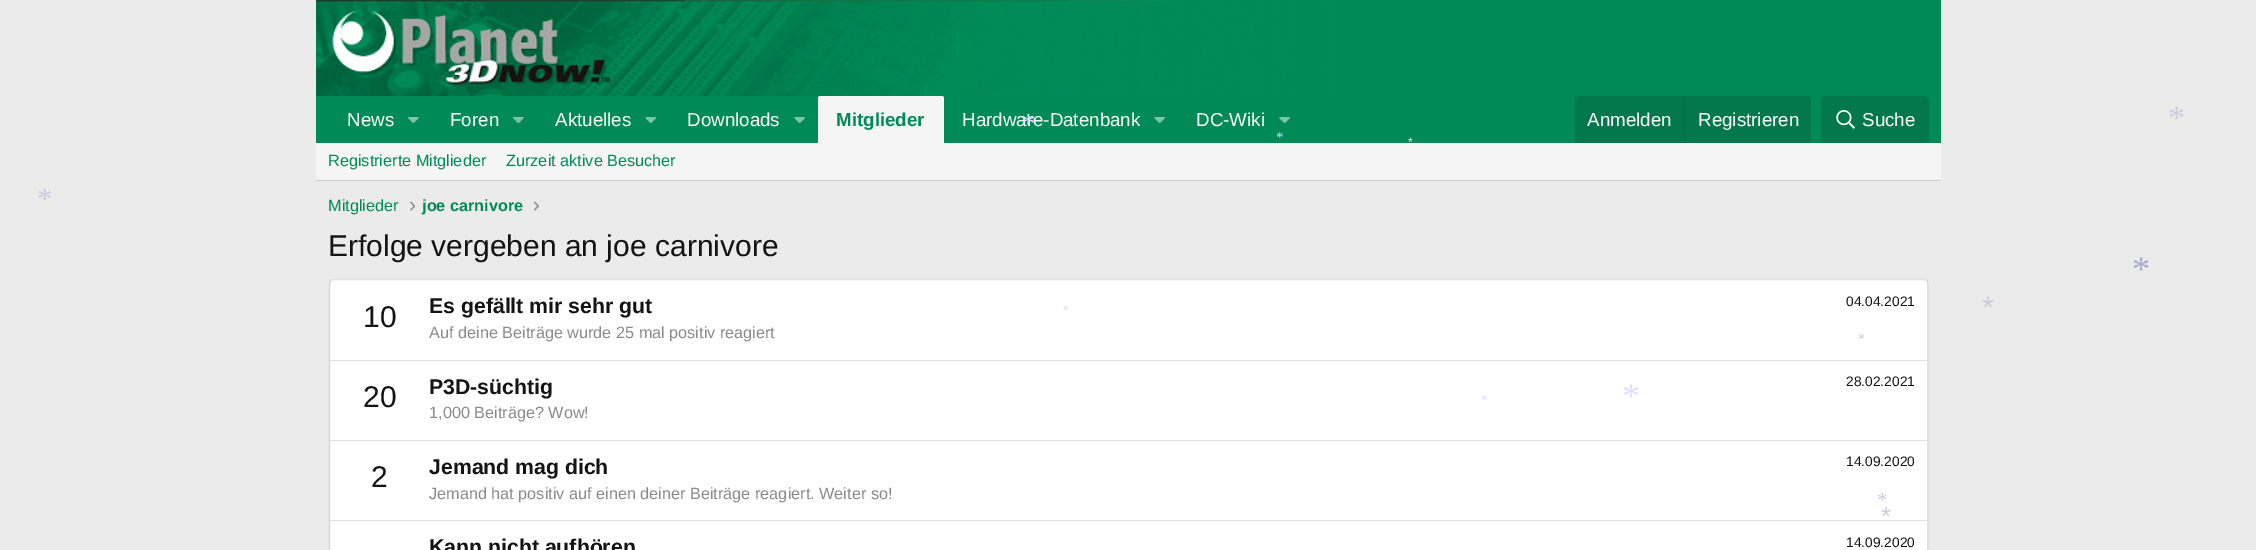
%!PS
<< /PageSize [2256 550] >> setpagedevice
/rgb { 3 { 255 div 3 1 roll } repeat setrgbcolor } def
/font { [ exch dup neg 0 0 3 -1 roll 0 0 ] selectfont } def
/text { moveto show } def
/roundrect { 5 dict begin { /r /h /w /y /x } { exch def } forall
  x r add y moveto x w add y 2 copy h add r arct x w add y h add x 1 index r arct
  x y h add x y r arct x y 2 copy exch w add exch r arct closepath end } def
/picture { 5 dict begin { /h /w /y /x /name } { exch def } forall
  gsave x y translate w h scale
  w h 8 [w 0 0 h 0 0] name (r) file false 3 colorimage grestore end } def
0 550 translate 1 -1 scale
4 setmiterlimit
235 235 235 rgb
0 0 2256 550 rectfill
0 138 87 rgb
316 0 1625 143 rectfill
(img_01.rgb) 316 0 1020 96 picture
(img_02.rgb) 332 10 279 77 picture
(img_03.rgb) 408 117 11 7 picture
(img_03.rgb) 513 117 11 7 picture
(img_04.rgb) 645 117 11 7 picture
(img_05.rgb) 794 117 11 7 picture
245 245 245 rgb
820.5 96 moveto 121 0 rlineto 1.5 0 2.5 1 2.5 2.5 rcurveto 0 44.5 rlineto -126 0 rlineto 0 -44.5 rlineto 0 -1.5 1 -2.5 2.5 -2.5 rcurveto closepath fill
(img_05.rgb) 1154 117 11 7 picture
(img_05.rgb) 1279 117 11 7 picture
3 120 77 rgb
1580 96 moveto 226 0 rlineto 3 0 5 2 5 5 rcurveto 0 42 rlineto -236 0 rlineto 0 -42 rlineto 0 -3 2 -5 5 -5 rcurveto closepath fill
6 105 68 rgb
1684 96 1 47 rectfill
3 120 77 rgb
1826 96 moveto 98 0 rlineto 3 0 5 2 5 5 rcurveto 0 42 rlineto -108 0 rlineto 0 -42 rlineto 0 -3 2 -5 5 -5 rcurveto closepath fill
(img_06.rgb) 1836 110 19 19 picture
245 245 245 rgb
316 143 1625 37 rectfill
204 204 204 rgb
316 180 1625 1 rectfill
(img_07.rgb) 410 201 5 10 picture
(img_08.rgb) 534 201 6 10 picture
255 255 255 rgb
329 279 1600 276 5 roundrect fill
224 224 224 rgb
1.2 setlinewidth
330.5 280.5 moveto 3.5 -1 rlineto 1590 0 rlineto 3 1 rlineto stroke
214 214 214 rgb
1927 280.5 moveto 1 3.5 rlineto 0 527 rlineto -1 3.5 rlineto stroke
330.5 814.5 moveto -1 -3.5 rlineto 0 -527 rlineto 1 -3.5 rlineto stroke
224 224 224 rgb
330 360 1598 1 rectfill
330 440 1598 1 rectfill
330 520 1598 1 rectfill
/LiberationSans-Regular 18.75 font
250 250 250 rgb
(News) 347 126 text
(Foren) 450 126 text
(Aktuelles) 555 126 text
(Downloads) 687 126 text
/LiberationSans-Bold 18.75 font
0 138 87 rgb
(Mitglieder) 836 126 text
/LiberationSans-Regular 18.75 font
250 250 250 rgb
(Hardware-Datenbank) 962 126 text
(DC-Wiki) 1196 126 text
(Anmelden) 1587 126 text
(Registrieren) 1698 126 text
(Suche) 1862 126 text
/LiberationSans-Regular 16.25 font
0 138 87 rgb
(Registrierte Mitglieder) 328 166 text
(Zurzeit aktive Besucher) 506 166 text
(Mitglieder) 328 211 text
/LiberationSans-Bold 16.25 font
(joe carnivore) 422 211 text
/LiberationSans-Regular 30 font
20 20 20 rgb
(Erfolge vergeben an joe carnivore) 328 256 text
(10) 363 327 text
/LiberationSans-Bold 21.25 font
(Es gefällt mir sehr gut) 429 313 text
/LiberationSans-Regular 13.75 font
(04.04.2021) 1846 306 text
/LiberationSans-Regular 16.25 font
138 138 138 rgb
(Auf deine Beiträge wurde 25 mal positiv reagiert) 429 338 text
/LiberationSans-Regular 30 font
20 20 20 rgb
(20) 363 407 text
/LiberationSans-Bold 21.25 font
(P3D-süchtig) 429 394 text
/LiberationSans-Regular 13.75 font
(28.02.2021) 1846 386 text
/LiberationSans-Regular 16.25 font
138 138 138 rgb
(1,000 Beiträge? Wow!) 429 418 text
/LiberationSans-Regular 30 font
20 20 20 rgb
(2) 371 487 text
/LiberationSans-Bold 21.25 font
(Jemand mag dich) 429 474 text
/LiberationSans-Regular 13.75 font
(14.09.2020) 1846 466 text
/LiberationSans-Regular 16.25 font
138 138 138 rgb
(Jemand hat positiv auf einen deiner Beiträge reagiert. Weiter so!) 429 499 text
/LiberationSans-Bold 21.25 font
20 20 20 rgb
(Kann nicht aufhören) 429 554 text
/LiberationSans-Regular 13.75 font
(14.09.2020) 1846 547 text
/LiberationSerif-Regular 34 font
204 204 221 rgb
(*) 2168 129 text
/LiberationSerif-Regular 29 font
221 221 255 rgb
(*) 1021 133 text
/LiberationSerif-Regular 15 font
(*) 1276 142 text
/LiberationSans-Regular 12 font
243 243 243 rgb
(*) 1408 146 text
/LiberationSerif-Regular 31 font
204 204 221 rgb
(*) 37 209 text
/LiberationSerif-Regular 36 font
170 170 204 rgb
(*) 2132 281 text
/LiberationSans-Regular 13.75 font
221 221 255 rgb
(*) 1063 315 text
/LiberationSans-Regular 31 font
204 204 221 rgb
(*) 1982 318 text
/LiberationSerif-Regular 13.75 font
(*) 1858 343 text
221 221 255 rgb
(*) 1481 404 text
/LiberationSerif-Regular 36 font
(*) 1622 408 text
/LiberationSerif-Regular 21.25 font
204 204 221 rgb
(*) 1877 507 text
/LiberationSans-Regular 26 font
(*) 1881 525 text
showpage
